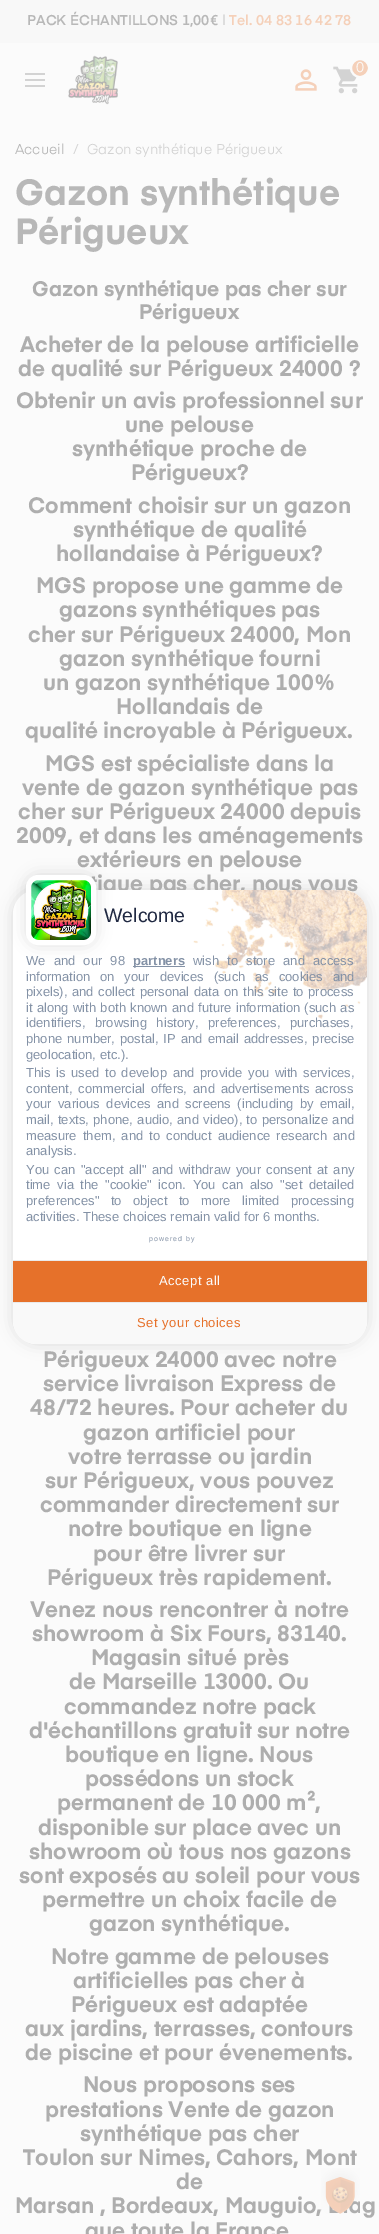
%!PS
<< /PageSize [379 2234] /PageUsesTransparency true >> setpagedevice
/rgb { 3 { 255 div 3 1 roll } repeat setrgbcolor } def
/font { [ exch dup neg 0 0 3 -1 roll 0 0 ] selectfont } def
/text { moveto show } def
/alpha { dup .setfillconstantalpha .setstrokeconstantalpha } def
/circle { newpath 0 360 arc closepath } def
/roundrect { 5 dict begin { /r /h /w /y /x } { exch def } forall
  x r add y moveto x w add y 2 copy h add r arct x w add y h add x 1 index r arct
  x y h add x y r arct x y 2 copy exch w add exch r arct closepath end } def
/shadow { 12 dict begin { /a /b /q /h /w /y /x } { exch def } forall gsave /was 0 def
  9 -2 -9 { dup b mul 4 div /e exch def 1 sub .425 mul 2.718 exch exp 1 add a .99 .min exch div /now exch def
    1 1 now sub 1 was sub div sub alpha /was now def
    w h .min e 2 mul add 0 gt { x e sub y e sub w e 2 mul add h e 2 mul add
      q e add b .6 mul add w h .min 2 div e add .min 0 .max roundrect fill } if } for grestore end } def
/picture { 5 dict begin { /h /w /y /x /name } { exch def } forall
  gsave x y translate w h scale
  w h 8 [w 0 0 h 0 0] name (r) file false 3 colorimage grestore end } def
0 .pushpdf14devicefilter
0 2234 translate 1 -1 scale
4 setmiterlimit
251 251 251 rgb
0 0 379 2234 rectfill
248 248 248 rgb
0 0 379 43 rectfill
211 211 211 rgb
25 73 20 2 rectfill
25 79 20 2 rectfill
25 85 20 2 rectfill
(img_01.rgb) 68 55 50 50 picture
(img_02.rgb) 333 66 25 28 picture
245 208 185 rgb
360 68 8 circle fill
251 251 251 rgb
2 setlinewidth
360 68 9 circle stroke
(img_03.rgb) 295 69 22 22 picture
0 0 0 rgb
13 890 354 454 24 7.5 0.12 shadow
/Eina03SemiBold-SemiBold 14 font
184 184 184 rgb
(PACK ÉCHANTILLONS 1,00€) 27 25 text
211 211 211 rgb
(|) 222 25 text
245 208 185 rgb
(Tel. 04 83 16 42 78) 229 25 text
/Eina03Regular-Regular 14 font
251 251 251 rgb
(0) 356 72 text
184 184 184 rgb
(Accueil) 15 154 text
211 211 211 rgb
(/) 73 154 text
(Gazon synthétique Périgueux) 87 154 text
/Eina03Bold-Bold 36 font
184 184 184 rgb
(Gazon synthétique) 15 205 text
(Périgueux) 15 244 text
/Eina03Bold-Bold 20.75 font
174 174 174 rgb
(Gazon synthétique pas cher sur) 32 296 text
(Périgueux) 139 319 text
/Eina03Bold-Bold 22 font
(Acheter de la pelouse artificielle) 20 352 text
(de qualité sur Périgueux 24000 ?) 18 376 text
(Obtenir un avis professionnel sur) 16 408 text
(une pelouse) 125 432 text
(synthétique proche de) 72 456 text
(Périgueux?) 131 480 text
(Comment choisir sur un gazon) 28 513 text
(synthétique de qualité) 73 537 text
(hollandaise à Périgueux?) 56 561 text
(MGS propose une gamme de) 36 593 text
(gazons synthétiques pas) 59 617 text
(cher sur Périgueux 24000, Mon) 28 642 text
(gazon synthétique fourni) 59 666 text
(un gazon synthétique 100%) 43 690 text
(Hollandais de) 116 714 text
(qualité incroyable à Périgueux.) 25 738 text
(MGS est spécialiste dans la) 45 771 text
(vente de gazon synthétique pas) 22 795 text
(cher sur Périgueux 24000 depuis) 18 819 text
(2009, et dans les aménagements) 16 843 text
(extérieurs en pelouse) 77 867 text
(tique pas cher, nous vous) 90 891 text
(Périgueux 24000 avec notre) 43 1367 text
(service livraison Express de) 43 1391 text
(48/72 heures. Pour acheter du) 30 1415 text
(gazon artificiel pour) 83 1440 text
(votre terrasse ou jardin) 68 1464 text
(sur Périgueux, vous pouvez) 45 1488 text
(commander directement sur) 40 1512 text
(notre boutique en ligne) 68 1536 text
(pour être livrer sur) 93 1561 text
(Périgueux très rapidement.) 47 1585 text
(Venez nous rencontrer à notre) 30 1617 text
(showroom à Six Fours, 83140.) 32 1641 text
(Magasin situé près) 91 1665 text
(de Marseille 13000. Ou) 69 1689 text
(commandez notre pack) 64 1714 text
(d'échantillons gratuit sur notre) 29 1738 text
(boutique en ligne. Nous) 65 1762 text
(possédons un stock) 85 1786 text
(permanent de 10 000 m²,) 57 1810 text
(disponible sur place avec un) 38 1835 text
(showroom où tous nos gazons) 29 1859 text
(sont exposés au soleil pour vous) 19 1883 text
(permettre un choix facile de) 42 1907 text
(gazon synthétique.) 89 1931 text
(Notre gamme de pelouses) 51 1964 text
(artificielles pas cher à) 73 1988 text
(Périgueux est adaptée) 71 2012 text
(aux jardins, terrasses, contours) 25 2036 text
(de piscine et pour évenements.) 25 2060 text
(Nous proposons ses) 83 2092 text
(prestations Vente de gazon) 45 2117 text
(synthétique pas cher) 80 2141 text
(Toulon sur Nimes, Cahors, Mont) 23 2165 text
(de) 176 2189 text
(Marsan , Bordeaux, Mauguio,) 15 2213 text
(g) 362 2213 text
(que toute la France) 85 2238 text
255 255 255 rgb
13 890 354 454 24 roundrect fill
0 0 0 rgb
26 875 70 70 12 7.5 0.12 shadow
(img_04.rgb) 31 880 60 60 picture
255 255 255 rgb
5 setlinewidth
28.5 877.5 65 65 9.5 roundrect stroke
(img_05.rgb) 193 890 174 129 picture
/LiberationSans-Regular 19.5 font
32 41 66 rgb
(Welcome) 104 922 text
/LiberationSans-Regular 13 font
132 146 166 rgb
26 965 moveto 4.5 0 32 (We and our 98) widthshow
133 966 52 1 rectfill
/LiberationSans-Bold 13 font
(partners) 133 965 text
/LiberationSans-Regular 13 font
193 965 moveto 4.5 0 32 (wish to store and access) widthshow
26 981 moveto 6.25 0 32 (information on your devices \(such as cookies and) widthshow
26 996 moveto 1 0 32 (pixels\), and collect personal data on this site to process) widthshow
26 1012 moveto 0.75 0 32 (it along with both known and future information \(such as) widthshow
26 1027 moveto 6 0 32 (identifiers, browsing history, preferences, purchases,) widthshow
26 1043 moveto 1.5 0 32 (phone number, postal, IP and email addresses, precise) widthshow
(geolocation, etc.\).) 26 1059 text
26 1077 moveto 2 0 32 (This is used to develop and provide you with services,) widthshow
26 1093 moveto 2.5 0 32 (content, commercial offers, and advertisements across) widthshow
26 1108 moveto 3 0 32 (your various devices and screens \(including by email,) widthshow
26 1124 moveto 0.75 0 32 (mail, texts, phone, audio, and video\), to personalize and) widthshow
26 1140 moveto 2.5 0 32 (measure them, and to conduct audience research and) widthshow
(analysis.) 26 1155 text
26 1174 moveto 1.75 0 32 (You can "accept all" and withdraw your consent at any) widthshow
26 1189 moveto 3 0 32 (time via the "cookie" icon. You can also "set detailed) widthshow
26 1205 moveto 7.75 0 32 (preferences" to object to more limited processing) widthshow
(activities. These choices remain valid for 6 months.) 26 1221 text
/LiberationSans-Regular 7 font
149 1241 moveto 1 0 (powered by) ashow
230 113 42 rgb
13 1261 354 41 rectfill
234 234 234 rgb
13 1260 354 1 rectfill
/LiberationSans-Regular 13 font
251 251 251 rgb
159 1285 moveto 0.5 0 (Accept all) ashow
249 249 249 rgb
13 1302 moveto 354 0 rlineto 0 18 rlineto 0 13.5 -10.5 24 -24 24 rcurveto -306 0 rlineto -13.5 0 -24 -10.5 -24 -24 rcurveto closepath fill
234 234 234 rgb
13 1302 354 1 rectfill
230 113 42 rgb
137 1327 moveto 0.5 0 (Set your choices) ashow
(img_06.rgb) 321 2168 39 46 picture
.poppdf14devicefilter showpage
